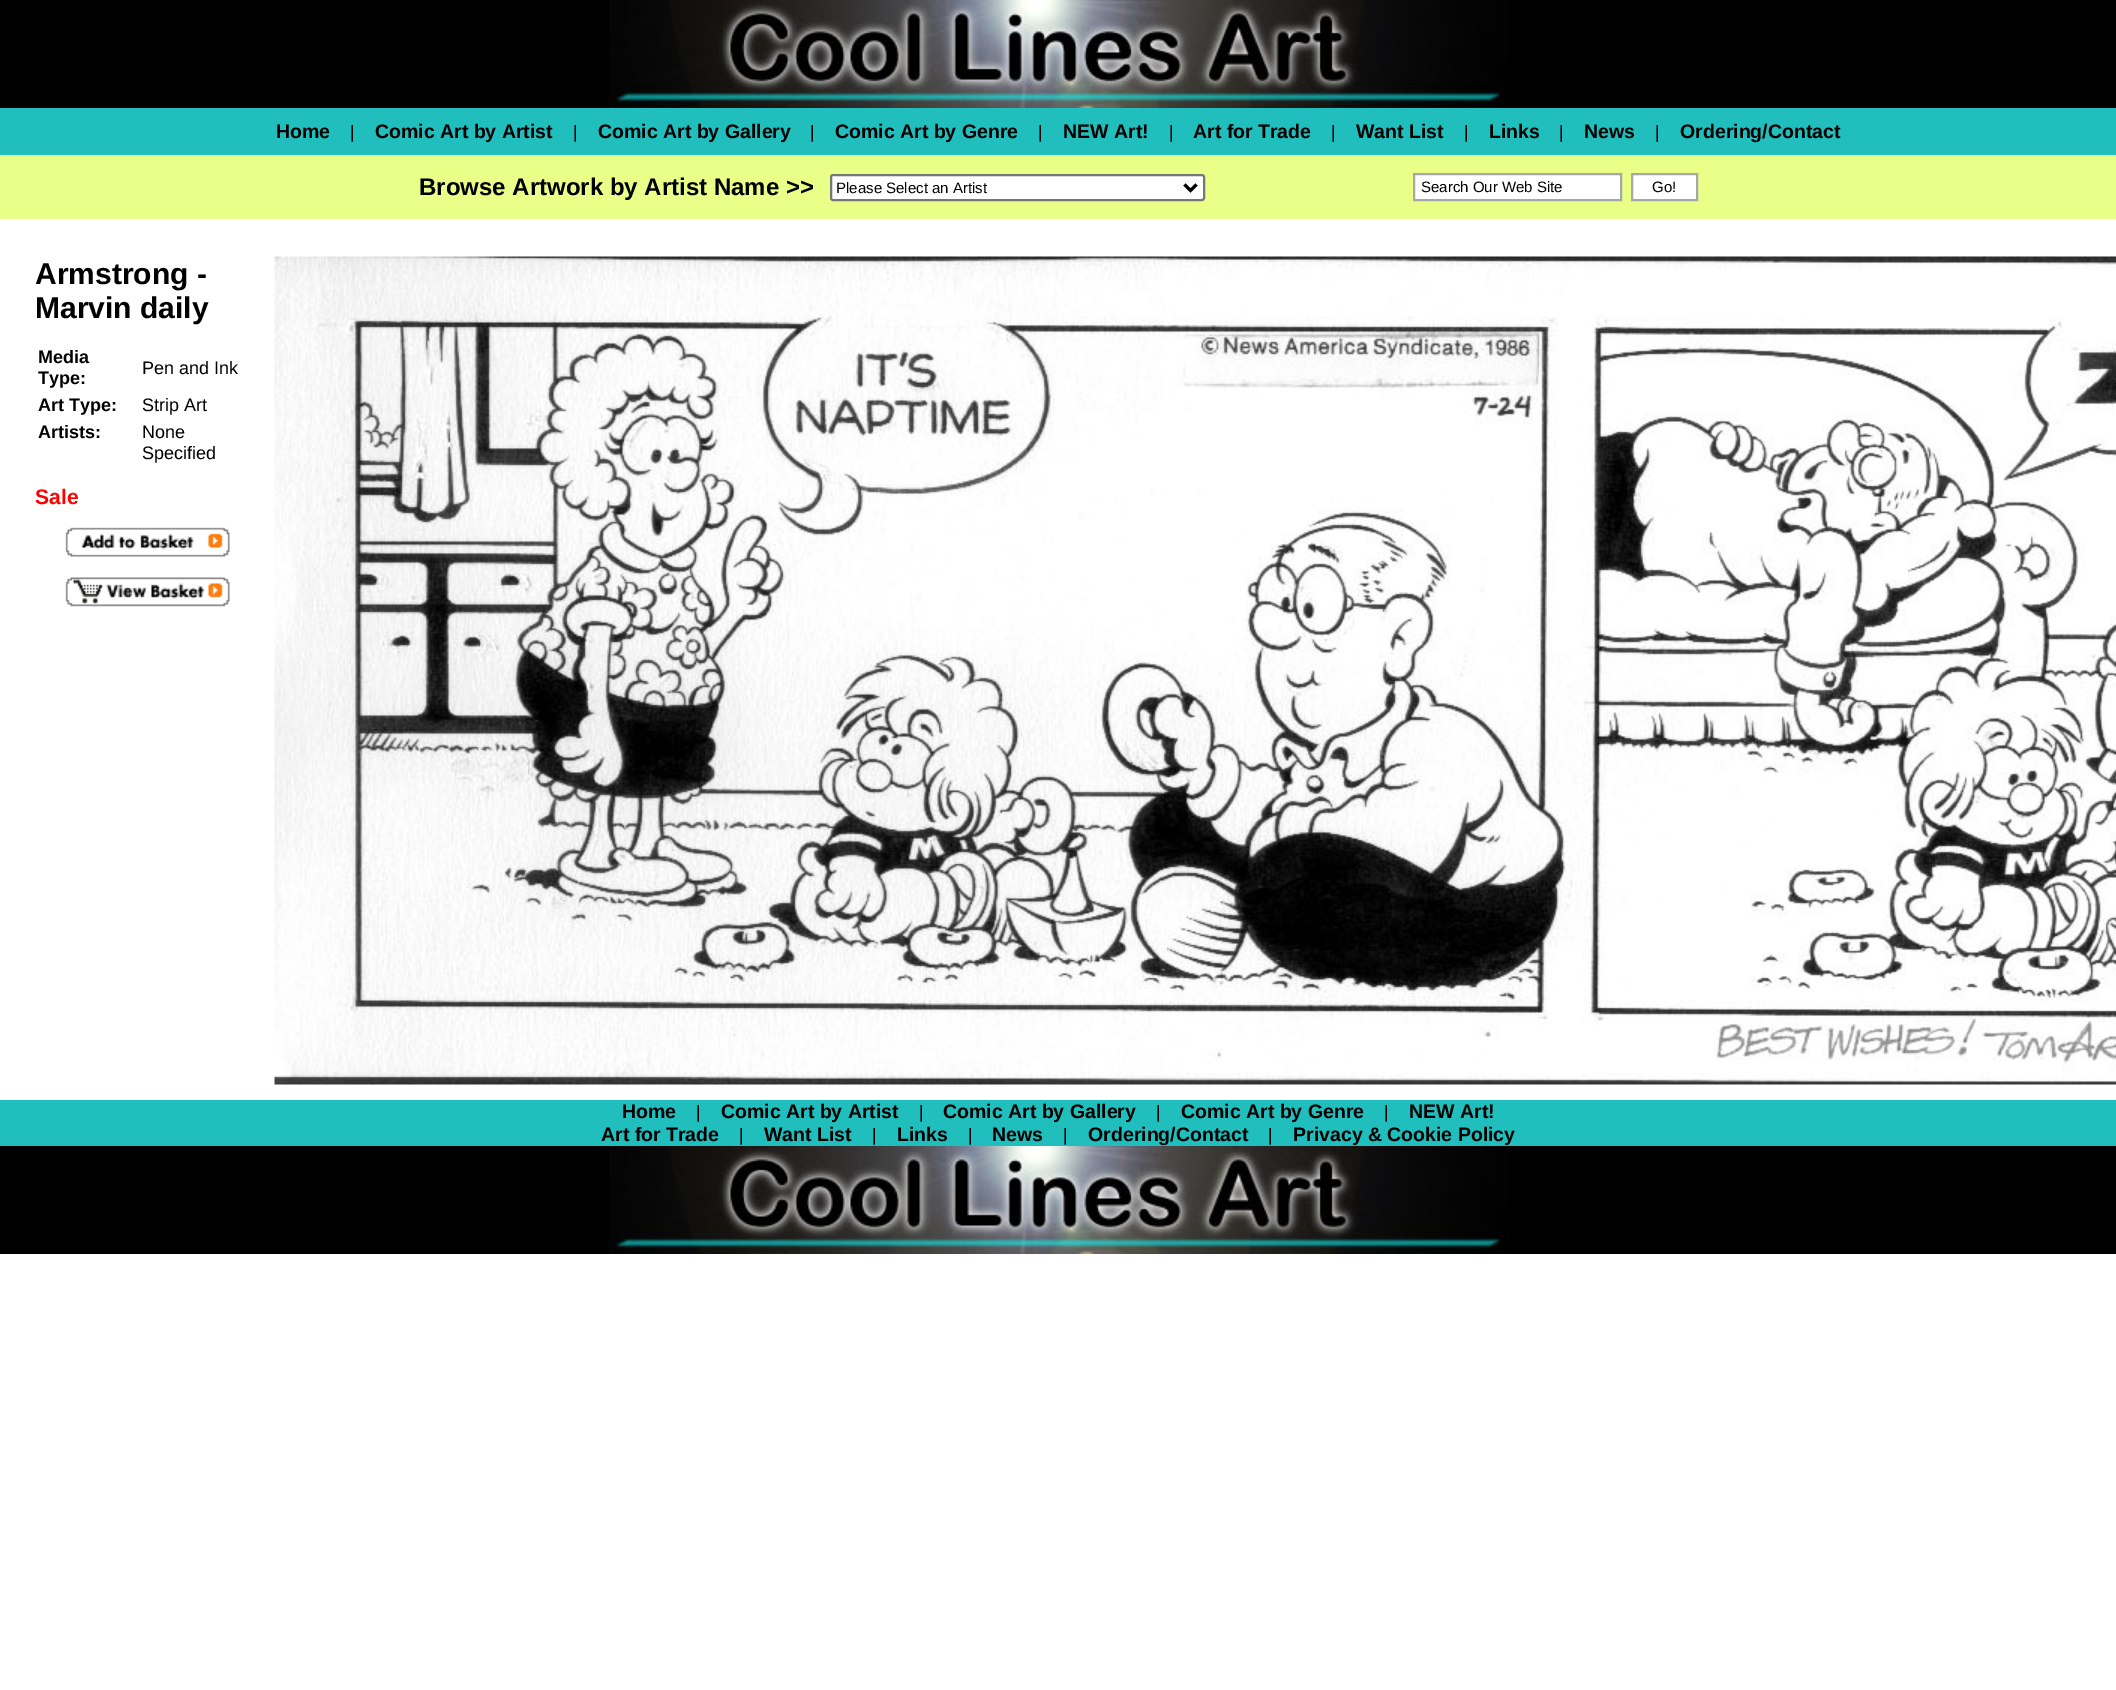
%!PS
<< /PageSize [2116 1690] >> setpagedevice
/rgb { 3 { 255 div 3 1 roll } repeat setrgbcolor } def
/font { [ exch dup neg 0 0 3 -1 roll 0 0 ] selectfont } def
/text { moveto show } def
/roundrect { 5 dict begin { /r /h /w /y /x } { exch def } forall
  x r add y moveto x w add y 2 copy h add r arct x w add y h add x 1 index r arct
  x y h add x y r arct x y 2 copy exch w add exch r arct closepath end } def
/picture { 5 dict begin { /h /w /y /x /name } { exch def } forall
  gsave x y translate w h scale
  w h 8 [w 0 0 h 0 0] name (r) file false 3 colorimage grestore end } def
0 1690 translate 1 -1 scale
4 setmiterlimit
255 255 255 rgb
0 0 2116 1690 rectfill
0 0 0 rgb
0 0 2116 108 rectfill
(img_01.rgb) 609 0 900 108 picture
32 190 188 rgb
0 108 2116 47 rectfill
234 255 136 rgb
0 155 2116 64 rectfill
255 255 255 rgb
831 175 373 25 2 roundrect gsave fill grestore
118 118 118 rgb
2 setlinewidth
stroke
0 0 0 rgb
3 setlinewidth
1184.5 184.5 moveto 6 6 rlineto 6 -6 rlineto stroke
255 255 255 rgb
1414 174 moveto 207 0 rlineto 0 26 rlineto -207 0 rlineto closepath gsave fill grestore
167 166 170 rgb
2 setlinewidth
stroke
255 255 255 rgb
1632 174 moveto 65 0 rlineto 0 26 rlineto -65 0 rlineto closepath gsave fill grestore
167 166 170 rgb
stroke
(img_02.rgb) 65 527 165 30 picture
(img_03.rgb) 65 577 165 30 picture
(img_04.rgb) 274 256 1842 829 picture
32 190 188 rgb
0 1100 2116 46 rectfill
0 0 0 rgb
0 1146 2116 108 rectfill
(img_01.rgb) 609 1146 900 108 picture
/LiberationSans-Bold 19.5 font
(Home) 276 138 text
/LiberationSans-Regular 18 font
(|) 350 138 text
/LiberationSans-Bold 19.5 font
(Comic Art by Artist) 375 138 text
/LiberationSans-Regular 18 font
(|) 573 138 text
/LiberationSans-Bold 19.5 font
(Comic Art by Gallery) 598 138 text
/LiberationSans-Regular 18 font
(|) 810 138 text
/LiberationSans-Bold 19.5 font
(Comic Art by Genre) 835 138 text
/LiberationSans-Regular 18 font
(|) 1038 138 text
/LiberationSans-Bold 19.5 font
(NEW Art!) 1063 138 text
/LiberationSans-Regular 18 font
(|) 1169 138 text
/LiberationSans-Bold 19.5 font
(Art for Trade) 1193 138 text
/LiberationSans-Regular 18 font
(|) 1331 138 text
/LiberationSans-Bold 19.5 font
(Want List) 1356 138 text
/LiberationSans-Regular 18 font
(|) 1464 138 text
/LiberationSans-Bold 19.5 font
(Links) 1489 138 text
/LiberationSans-Regular 18 font
(|) 1559 138 text
/LiberationSans-Bold 19.5 font
(News) 1584 138 text
/LiberationSans-Regular 18 font
(|) 1655 138 text
/LiberationSans-Bold 19.5 font
(Ordering/Contact) 1680 138 text
/LiberationSans-Bold 24 font
(Browse Artwork by Artist Name >>) 419 195 text
/LiberationSans-Regular 15 font
(Please Select an Artist) 836 193 text
(Search Our Web Site) 1421 192 text
(Go!) 1652 192 text
/LiberationSans-Bold 30 font
(Armstrong -) 35 284 text
(Marvin daily) 35 318 text
/LiberationSans-Bold 18 font
(Media) 38 363 text
(Type:) 38 384 text
/LiberationSans-Regular 18 font
(Pen and Ink) 142 374 text
/LiberationSans-Bold 18 font
(Art Type:) 38 411 text
/LiberationSans-Regular 18 font
(Strip Art) 142 411 text
/LiberationSans-Bold 18 font
(Artists:) 38 438 text
/LiberationSans-Regular 18 font
(None) 142 438 text
(Specified) 142 459 text
/LiberationSans-Bold 21 font
255 0 0 rgb
(Sale) 35 504 text
/LiberationSans-Bold 19.5 font
0 0 0 rgb
(Home) 622 1118 text
/LiberationSans-Regular 18 font
(|) 696 1118 text
/LiberationSans-Bold 19.5 font
(Comic Art by Artist) 721 1118 text
/LiberationSans-Regular 18 font
(|) 919 1118 text
/LiberationSans-Bold 19.5 font
(Comic Art by Gallery) 943 1118 text
/LiberationSans-Regular 18 font
(|) 1156 1118 text
/LiberationSans-Bold 19.5 font
(Comic Art by Genre) 1181 1118 text
/LiberationSans-Regular 18 font
(|) 1384 1118 text
/LiberationSans-Bold 19.5 font
(NEW Art!) 1409 1118 text
(Art for Trade) 601 1141 text
/LiberationSans-Regular 18 font
(|) 739 1141 text
/LiberationSans-Bold 19.5 font
(Want List) 764 1141 text
/LiberationSans-Regular 18 font
(|) 872 1141 text
/LiberationSans-Bold 19.5 font
(Links) 897 1141 text
/LiberationSans-Regular 18 font
(|) 968 1141 text
/LiberationSans-Bold 19.5 font
(News) 992 1141 text
/LiberationSans-Regular 18 font
(|) 1063 1141 text
/LiberationSans-Bold 19.5 font
(Ordering/Contact) 1088 1141 text
/LiberationSans-Regular 18 font
(|) 1268 1141 text
/LiberationSans-Bold 19.5 font
(Privacy & Cookie Policy) 1293 1141 text
showpage
